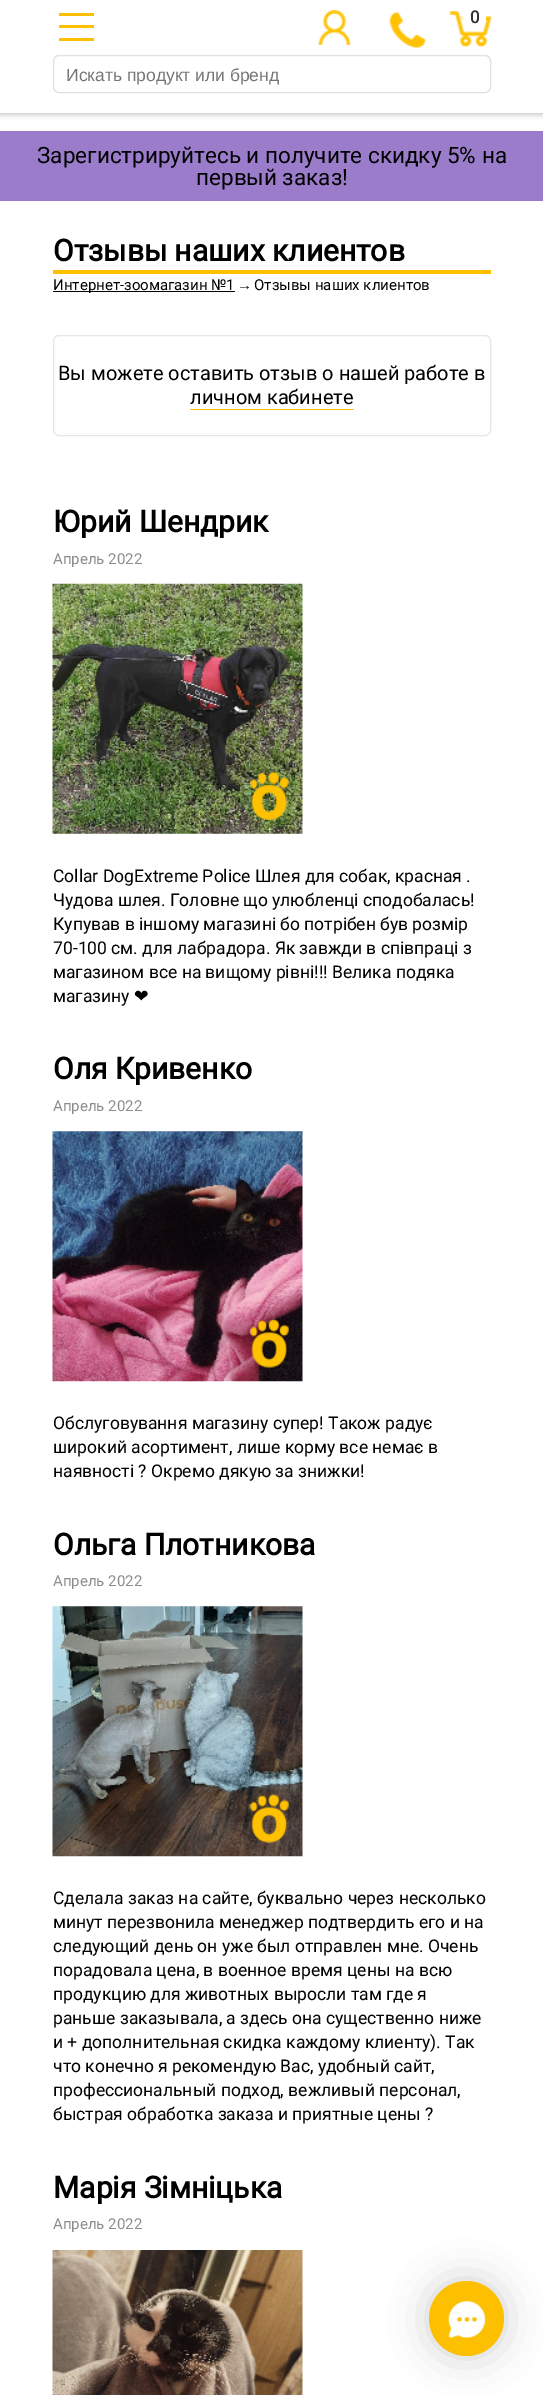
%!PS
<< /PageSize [543 2395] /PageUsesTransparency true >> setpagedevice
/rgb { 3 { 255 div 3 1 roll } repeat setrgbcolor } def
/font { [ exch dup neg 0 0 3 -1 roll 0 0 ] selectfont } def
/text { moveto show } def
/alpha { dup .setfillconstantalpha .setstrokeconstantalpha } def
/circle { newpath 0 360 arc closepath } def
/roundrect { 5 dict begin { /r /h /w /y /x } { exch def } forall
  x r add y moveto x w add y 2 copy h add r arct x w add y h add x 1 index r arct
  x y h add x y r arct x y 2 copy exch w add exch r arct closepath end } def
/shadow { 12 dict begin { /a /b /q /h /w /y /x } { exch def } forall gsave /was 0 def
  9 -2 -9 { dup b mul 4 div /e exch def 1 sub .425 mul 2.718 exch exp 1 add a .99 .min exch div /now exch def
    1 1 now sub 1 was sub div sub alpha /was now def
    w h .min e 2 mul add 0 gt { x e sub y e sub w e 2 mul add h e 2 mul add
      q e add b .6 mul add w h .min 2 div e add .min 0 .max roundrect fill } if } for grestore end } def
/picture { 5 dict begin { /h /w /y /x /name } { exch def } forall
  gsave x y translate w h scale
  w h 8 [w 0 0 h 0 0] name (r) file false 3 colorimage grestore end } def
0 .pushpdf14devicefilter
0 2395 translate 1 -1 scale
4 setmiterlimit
255 255 255 rgb
0 0 543 2395 rectfill
0 0 0 rgb
0 3 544 112 0 2.5 0.2 shadow
255 255 255 rgb
0 0 543 113 rectfill
252 192 0 rgb
59 13 35 3 rectfill
59 25 35 3 rectfill
59 38 35 3 rectfill
(img_01.rgb) 318 10 33 35 picture
(img_02.rgb) 389 12 37 36 picture
(img_03.rgb) 449 11 43 36 picture
255 255 255 rgb
463 5 23 24 11.5 roundrect fill
224 224 224 rgb
53.5 55.5 437 37 5.5 roundrect stroke
154 124 203 rgb
0 131 543 70 rectfill
252 192 0 rgb
53 270 438 4 rectfill
0 0 0 rgb
53 291 182 1 rectfill
230 230 230 rgb
53.5 335.5 437 100 5.5 roundrect stroke
252 192 0 rgb
190 409 164 1 rectfill
(img_04.rgb) 52 583 251 251 picture
(img_05.rgb) 52 1131 251 251 picture
(img_06.rgb) 52 1606 251 251 picture
(img_07.rgb) 52 2250 251 145 picture
115 115 115 rgb
429 2281 75 75 37.5 19 0.33 shadow
252 192 0 rgb
466.5 2318.5 37.5 circle fill
(img_08.rgb) 448 2301 38 38 picture
/Roboto-Bold 17 font
51 51 51 rgb
(0) 470 23 text
/LiberationSans-Regular 17.5 font
117 117 117 rgb
(Искать продукт или бренд) 66 81 text
/Roboto-Regular 22.5 font
0 0 0 rgb
(Зарегистрируйтесь и получите скидку 5% на) 37 163 text
(первый заказ!) 196 185 text
/Roboto-Bold 30 font
(Отзывы наших клиентов) 53 261 text
/Roboto-Regular 15 font
(Интернет-зоомагазин №1) 53 290 text
/LiberationSans-Regular 15 font
(→) 237 290 text
/Roboto-Regular 15 font
(Отзывы наших клиентов) 254 290 text
/Roboto-Regular 20 font
(Вы можете оставить отзыв о нашей работе в) 58 380 text
(личном кабинете) 190 404 text
/Roboto-Bold 30 font
(Юрий Шендрик) 53 532 text
/Roboto-Regular 15 font
140 140 140 rgb
(Апрель 2022) 53 564 text
/Roboto-Regular 17.5 font
0 0 0 rgb
(Collar DogExtremе Police Шлея для собак, красная .) 53 882 text
(Чудова шлея. Головне що улюбленці сподобалась!) 53 906 text
(Купував в іншому магазині бо потрібен був розмір) 53 930 text
(70-100 см. для лабрадора. Як завжди в співпраці з) 53 954 text
(магазином все на вищому рівні!!! Велика подяка) 53 978 text
(магазину) 53 1002 text
/DejaVuSans-Regular 17.5 font
(❤) 134 1002 text
/Roboto-Bold 30 font
(Оля Кривенко) 53 1079 text
/Roboto-Regular 15 font
140 140 140 rgb
(Апрель 2022) 53 1111 text
/Roboto-Regular 17.5 font
0 0 0 rgb
(Обслуговування магазину супер! Також радує) 53 1429 text
(широкий асортимент, лише корму все немає в) 53 1453 text
(наявності ? Окремо дякую за знижки!) 53 1477 text
/Roboto-Bold 30 font
(Ольга Плотникова) 53 1555 text
/Roboto-Regular 15 font
140 140 140 rgb
(Апрель 2022) 53 1586 text
/Roboto-Regular 17.5 font
0 0 0 rgb
(Сделала заказ на сайте, буквально через несколько) 53 1904 text
(минут перезвонила менеджер подтвердить его и на) 53 1928 text
(следующий день он уже был отправлен мне. Очень) 53 1952 text
(порадовала цена, в военное время цены на всю) 53 1976 text
(продукцию для животных выросли там где я) 53 2000 text
(раньше заказывала, а здесь она существенно ниже) 53 2024 text
(и + дополнительная скидка каждому клиенту\). Так) 53 2048 text
(что конечно я рекомендую Вас, удобный сайт,) 53 2072 text
(профессиональный подход, вежливый персонал,) 53 2096 text
(быстрая обработка заказа и приятные цены ?) 53 2120 text
/Roboto-Bold 30 font
(Марія Зімніцька) 53 2198 text
/Roboto-Regular 15 font
140 140 140 rgb
(Апрель 2022) 53 2229 text
.poppdf14devicefilter showpage
